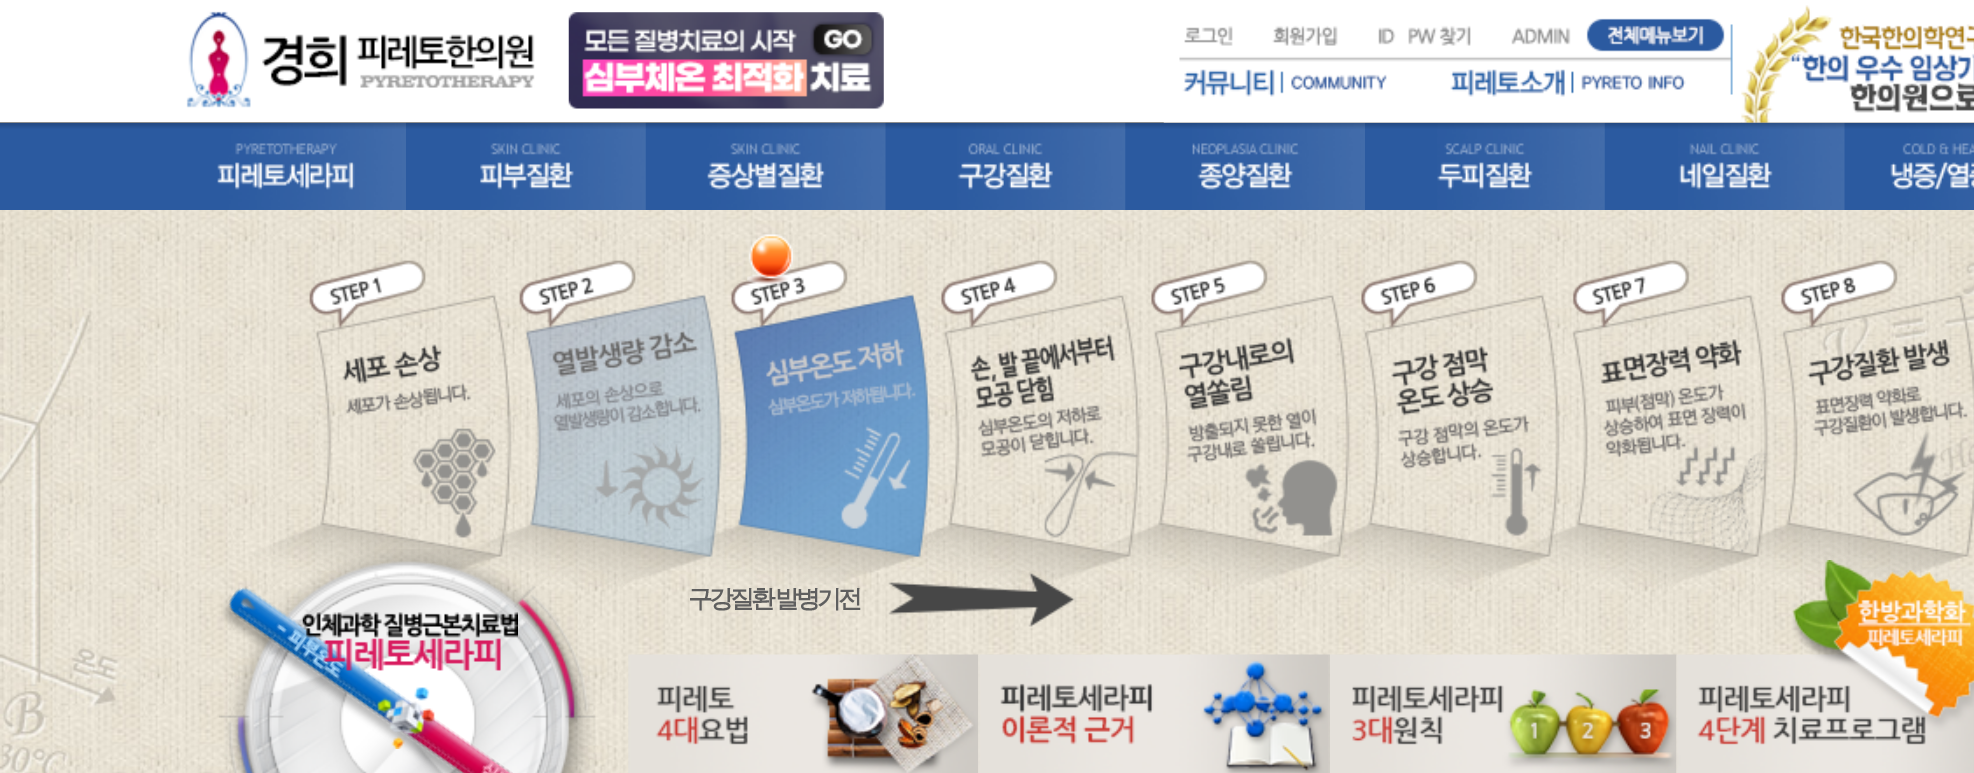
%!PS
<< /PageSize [1974 773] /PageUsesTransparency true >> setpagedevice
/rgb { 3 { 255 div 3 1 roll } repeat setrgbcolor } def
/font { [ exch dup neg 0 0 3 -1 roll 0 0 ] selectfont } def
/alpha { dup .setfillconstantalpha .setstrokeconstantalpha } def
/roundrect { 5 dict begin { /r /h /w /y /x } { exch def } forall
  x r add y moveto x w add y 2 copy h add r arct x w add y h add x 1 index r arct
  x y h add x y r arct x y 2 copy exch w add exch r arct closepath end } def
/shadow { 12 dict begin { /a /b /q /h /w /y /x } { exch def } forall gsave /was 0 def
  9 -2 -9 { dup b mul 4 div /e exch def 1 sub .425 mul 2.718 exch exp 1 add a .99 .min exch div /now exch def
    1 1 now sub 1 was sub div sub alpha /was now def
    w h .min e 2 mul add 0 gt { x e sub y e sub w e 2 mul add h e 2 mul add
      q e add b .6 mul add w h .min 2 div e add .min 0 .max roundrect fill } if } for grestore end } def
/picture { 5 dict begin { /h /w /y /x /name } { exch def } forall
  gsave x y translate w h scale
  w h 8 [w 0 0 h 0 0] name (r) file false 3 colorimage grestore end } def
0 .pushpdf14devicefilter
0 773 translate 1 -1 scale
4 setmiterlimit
255 255 255 rgb
0 0 1974 773 rectfill
(img_01.rgb) 0 210 1974 563 picture
0.9 alpha
34 34 34 rgb
0 122 1974 1 rectfill
0 122 1974 1 rectfill
1 alpha
43 90 160 rgb
0 123 1974 87 rectfill
(img_07.rgb) 217 122 189 88 picture
(img_08.rgb) 480 122 166 88 picture
(img_09.rgb) 707 122 179 88 picture
(img_10.rgb) 957 122 169 88 picture
(img_11.rgb) 1192 122 173 88 picture
(img_12.rgb) 1437 122 168 88 picture
(img_13.rgb) 1678 122 167 88 picture
(img_14.rgb) 1890 123 84 87 picture
(img_02.rgb) 0 70 1974 59 picture
(img_03.rgb) 186 11 349 97 picture
(img_04.rgb) 568 12 316 97 picture
(img_06.rgb) 1741 5 233 118 picture
(img_05.rgb) 1163 18 579 105 picture
(img_22.rgb) 254 523 1712 104 picture
(img_24.rgb) 309 260 203 297 picture
(img_25.rgb) 519 260 203 297 picture
(img_26.rgb) 526 294 196 263 picture
(img_15.rgb) 219 549 377 224 picture
(img_16.rgb) 221 587 292 186 picture
(img_17.rgb) 302 612 216 137 picture
(img_18.rgb) 628 654 351 119 picture
(img_19.rgb) 978 654 352 119 picture
(img_20.rgb) 1330 654 347 119 picture
128 128 128 rgb
1852 644 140 105 4 4.5 1 shadow
(img_21.rgb) 1676 560 298 213 picture
(img_27.rgb) 731 260 199 297 picture
(img_23.rgb) 747 234 46 50 picture
(img_28.rgb) 733 294 197 264 picture
(img_29.rgb) 941 260 199 297 picture
(img_30.rgb) 1151 260 199 297 picture
(img_31.rgb) 1361 260 199 297 picture
(img_32.rgb) 1572 260 196 297 picture
(img_33.rgb) 1781 260 193 297 picture
/WenQuanYiZenHei-Bold 24.5 font
95 95 95 rgb
688 607 moveto -1 0 32 -3.5 0 (구강질환 발병기전) awidthshow
.poppdf14devicefilter showpage
